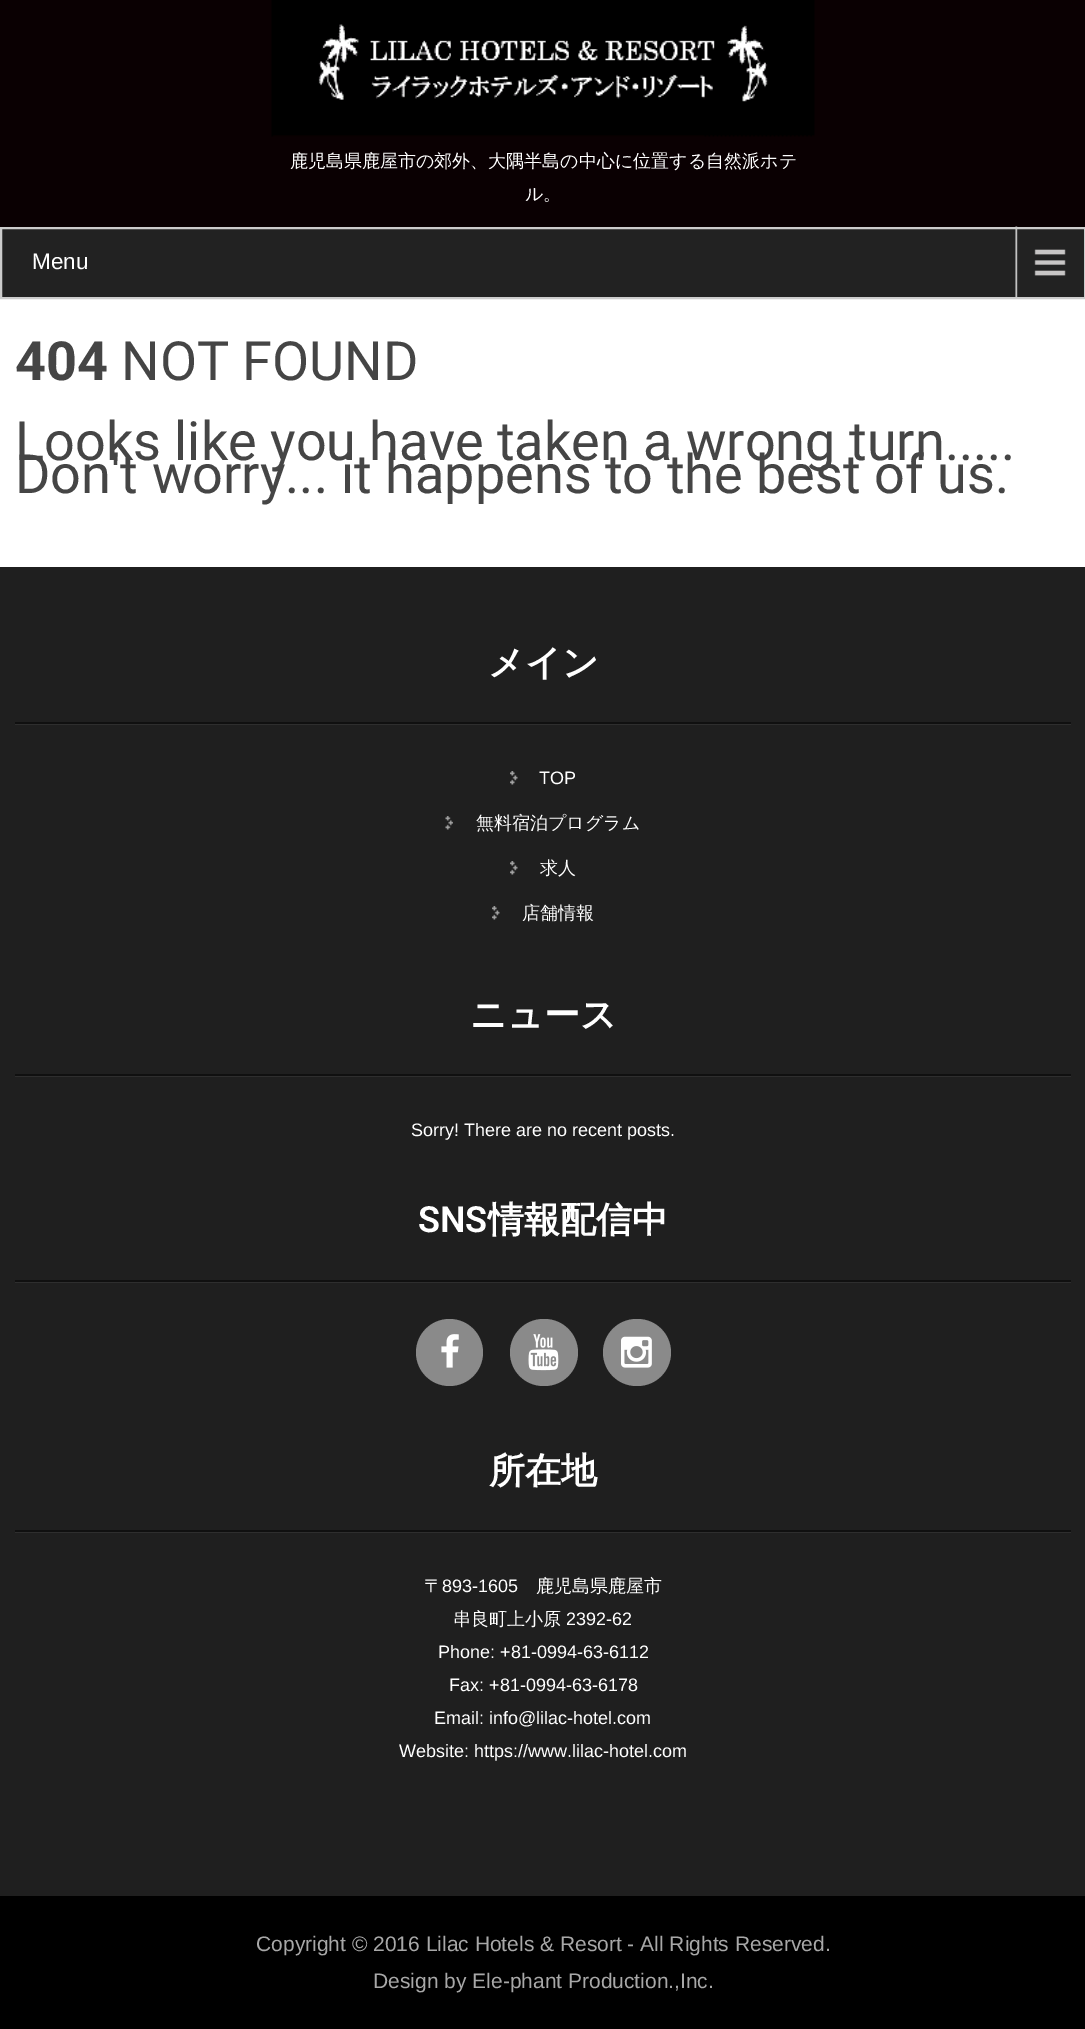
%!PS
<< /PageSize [1085 2029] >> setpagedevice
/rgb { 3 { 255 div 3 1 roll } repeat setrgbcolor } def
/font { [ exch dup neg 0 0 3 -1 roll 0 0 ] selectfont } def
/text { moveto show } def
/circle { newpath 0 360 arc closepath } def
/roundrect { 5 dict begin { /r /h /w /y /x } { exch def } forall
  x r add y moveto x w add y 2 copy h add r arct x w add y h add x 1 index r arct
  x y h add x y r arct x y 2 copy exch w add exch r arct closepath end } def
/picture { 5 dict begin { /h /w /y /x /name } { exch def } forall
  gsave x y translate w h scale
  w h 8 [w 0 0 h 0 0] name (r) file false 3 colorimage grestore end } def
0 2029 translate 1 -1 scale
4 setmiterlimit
255 255 255 rgb
0 0 1085 2029 rectfill
10 0 2 rgb
0 0 1085 227 rectfill
(img_01.rgb) 271 0 544 137 picture
34 34 34 rgb
2 229 1082 68 rectfill
(img_02.rgb) 1015 226 51 71 picture
204 204 204 rgb
2 setlinewidth
1 228 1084 70 rectstroke
31 31 31 rgb
0 567 1085 1329 rectfill
46 46 46 rgb
15 724 1056 1 rectfill
16 16 16 rgb
15 722 1056 2 rectfill
(img_03.rgb) 510 771 8 14 picture
(img_04.rgb) 445 816 8 14 picture
(img_03.rgb) 510 861 8 14 picture
(img_05.rgb) 492 906 8 14 picture
46 46 46 rgb
15 1076 1056 1 rectfill
16 16 16 rgb
15 1074 1056 2 rectfill
46 46 46 rgb
15 1282 1056 1 rectfill
16 16 16 rgb
15 1280 1056 2 rectfill
138 138 138 rgb
449.5 1352.5 33.5 circle fill
(img_06.rgb) 441 1334 18 34 picture
510 1319 68 67 33.5 roundrect fill
(img_07.rgb) 528 1334 31 37 picture
603 1319 68 67 33.5 roundrect fill
(img_08.rgb) 621 1336 31 32 picture
46 46 46 rgb
15 1532 1056 1 rectfill
16 16 16 rgb
15 1530 1056 2 rectfill
0 0 0 rgb
0 1896 1085 133 rectfill
/WenQuanYiZenHei-Medium 18 font
255 255 255 rgb
(鹿児島県鹿屋市の郊外、大隅半島の中心に位置する自然派ホテ) 290 167 text
(ル。) 525 200 text
/Arimo-Regular 22.5 font
(Menu) 32 269 text
/Roboto-Bold 54 font
69 69 69 rgb
(404) 15 380 text
/Roboto-Regular 54 font
(NOT FOUND) 121 380 text
(Looks like you have taken a wrong turn.....) 15 460 text
(Don't worry... it happens to the best of us.) 15 493 text
/WenQuanYiZenHei-Bold 36 font
255 255 255 rgb
(メイン) 488 675 text
/Arimo-Regular 18 font
(TOP) 539 784 text
/WenQuanYiZenHei-Medium 18 font
(無料宿泊プログラム) 476 829 text
(求人) 540 874 text
(店舗情報) 522 919 text
/WenQuanYiZenHei-Bold 36 font
(ニュース) 470 1027 text
/Arimo-Regular 18 font
(Sorry! There are no recent posts.) 411 1136 text
/Roboto-SemiBold 36 font
(SNS) 418 1232 text
/WenQuanYiZenHei-Bold 36 font
(情報配信中) 488 1232 text
(所在地) 489 1483 text
/WenQuanYiZenHei-Medium 18 font
(〒) 424 1592 text
/Arimo-Regular 18 font
(893-1605) 442 1592 text
/WenQuanYiZenHei-Medium 18 font
(鹿児島県鹿屋市) 536 1592 text
(串良町上小原) 453 1625 text
/Arimo-Regular 18 font
(2392-62) 566 1625 text
(Phone: +81-0994-63-6112) 438 1658 text
(Fax: +81-0994-63-6178) 449 1691 text
(Email: info@lilac-hotel.com) 434 1724 text
(Website: https://www.lilac-hotel.com) 399 1757 text
/Arimo-Regular 21 font
168 168 168 rgb
(Copyright © 2016 Lilac Hotels & Resort - All Rights Reserved.) 256 1951 text
(Design by Ele-phant Production.,Inc.) 373 1988 text
showpage
